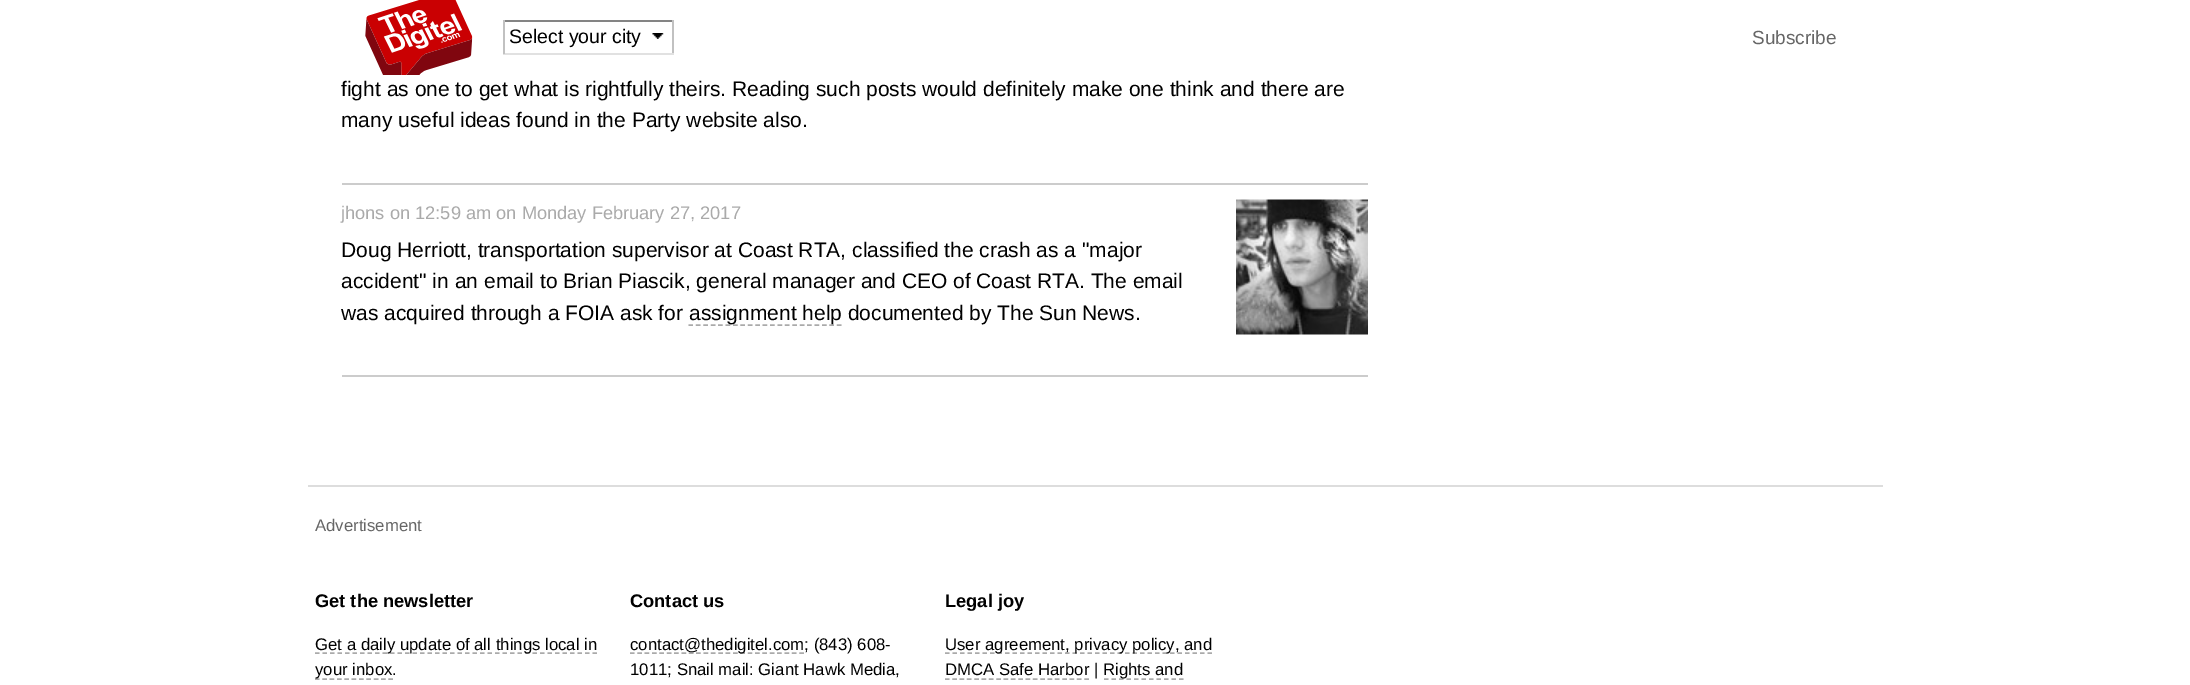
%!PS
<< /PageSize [2190 685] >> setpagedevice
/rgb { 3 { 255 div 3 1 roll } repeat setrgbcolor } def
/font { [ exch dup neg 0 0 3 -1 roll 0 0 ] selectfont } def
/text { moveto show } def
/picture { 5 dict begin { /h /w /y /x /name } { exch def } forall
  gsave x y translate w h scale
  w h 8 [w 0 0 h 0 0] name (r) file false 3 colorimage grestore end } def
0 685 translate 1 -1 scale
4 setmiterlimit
255 255 255 rgb
0 0 2190 685 rectfill
(img_01.rgb) 365 0 108 75 picture
(img_02.rgb) 652 33 12 6 picture
132 132 132 rgb
503 20 171 2 rectfill
193 193 193 rgb
672 20 2 34 rectfill
225 225 225 rgb
503 53 171 2 rectfill
193 193 193 rgb
503 20 2 34 rectfill
204 204 204 rgb
342 183 1026 2 rectfill
342 375 1026 2 rectfill
(img_03.rgb) 1236 199 132 136 picture
170 170 170 rgb
1.5 setlinewidth
[4.5 2.92] 0 setdash
688.5 325 moveto 153 0 rlineto stroke
221 221 221 rgb
308 485 1575 2 rectfill
170 170 170 rgb
[4.5 3] 0 setdash
315 653 moveto 282 0 rlineto stroke
[4.5 2.85] 0 setdash
315 679 moveto 78 0 rlineto stroke
[4.5 2.86] 0 setdash
630 653 moveto 174 0 rlineto stroke
[4.5 3] 0 setdash
945 653 moveto 267 0 rlineto stroke
[4.5 2.83] 0 setdash
945 679 moveto 144 0 rlineto stroke
[4.5 3] 0 setdash
1104 679 moveto 79.5 0 rlineto stroke
/LiberationSans-Regular 19.5 font
0 0 0 rgb
(Select your city) 509 43 text
/LiberationSans-Regular 19 font
102 102 102 rgb
(Subscribe) 1752 44 text
/LiberationSans-Regular 21 font
0 0 0 rgb
(fight as one to get what is rightfully theirs. Reading such posts would definitely make one think and there are) 341 96 text
(many useful ideas found in the Party website also.) 341 127 text
/LiberationSans-Regular 18.25 font
170 170 170 rgb
(jhons on 12:59 am on Monday February 27, 2017) 341 219 text
/LiberationSans-Regular 21 font
0 0 0 rgb
(Doug Herriott, transportation supervisor at Coast RTA, classified the crash as a "major) 341 257 text
(accident" in an email to Brian Piascik, general manager and CEO of Coast RTA. The email) 341 288 text
(was acquired through a FOIA ask for) 341 320 text
(assignment help documented by The Sun News.) 689 320 text
/LiberationSans-Regular 16.75 font
102 102 102 rgb
(Advertisement) 315 531 text
/LiberationSans-Bold 18.25 font
0 0 0 rgb
(Get the newsletter) 315 607 text
/LiberationSans-Regular 16.75 font
(Get a daily update of all things local in) 315 650 text
(your inbox.) 315 675 text
/LiberationSans-Bold 18.25 font
(Contact us) 630 607 text
/LiberationSans-Regular 16.75 font
(contact@thedigitel.com; \(843\) 608-) 630 650 text
(1011; Snail mail: Giant Hawk Media,) 630 675 text
/LiberationSans-Bold 18.25 font
(Legal joy) 945 607 text
/LiberationSans-Regular 16.75 font
(User agreement, privacy policy, and) 945 650 text
(DMCA Safe Harbor |) 945 675 text
(Rights and) 1103 675 text
showpage
